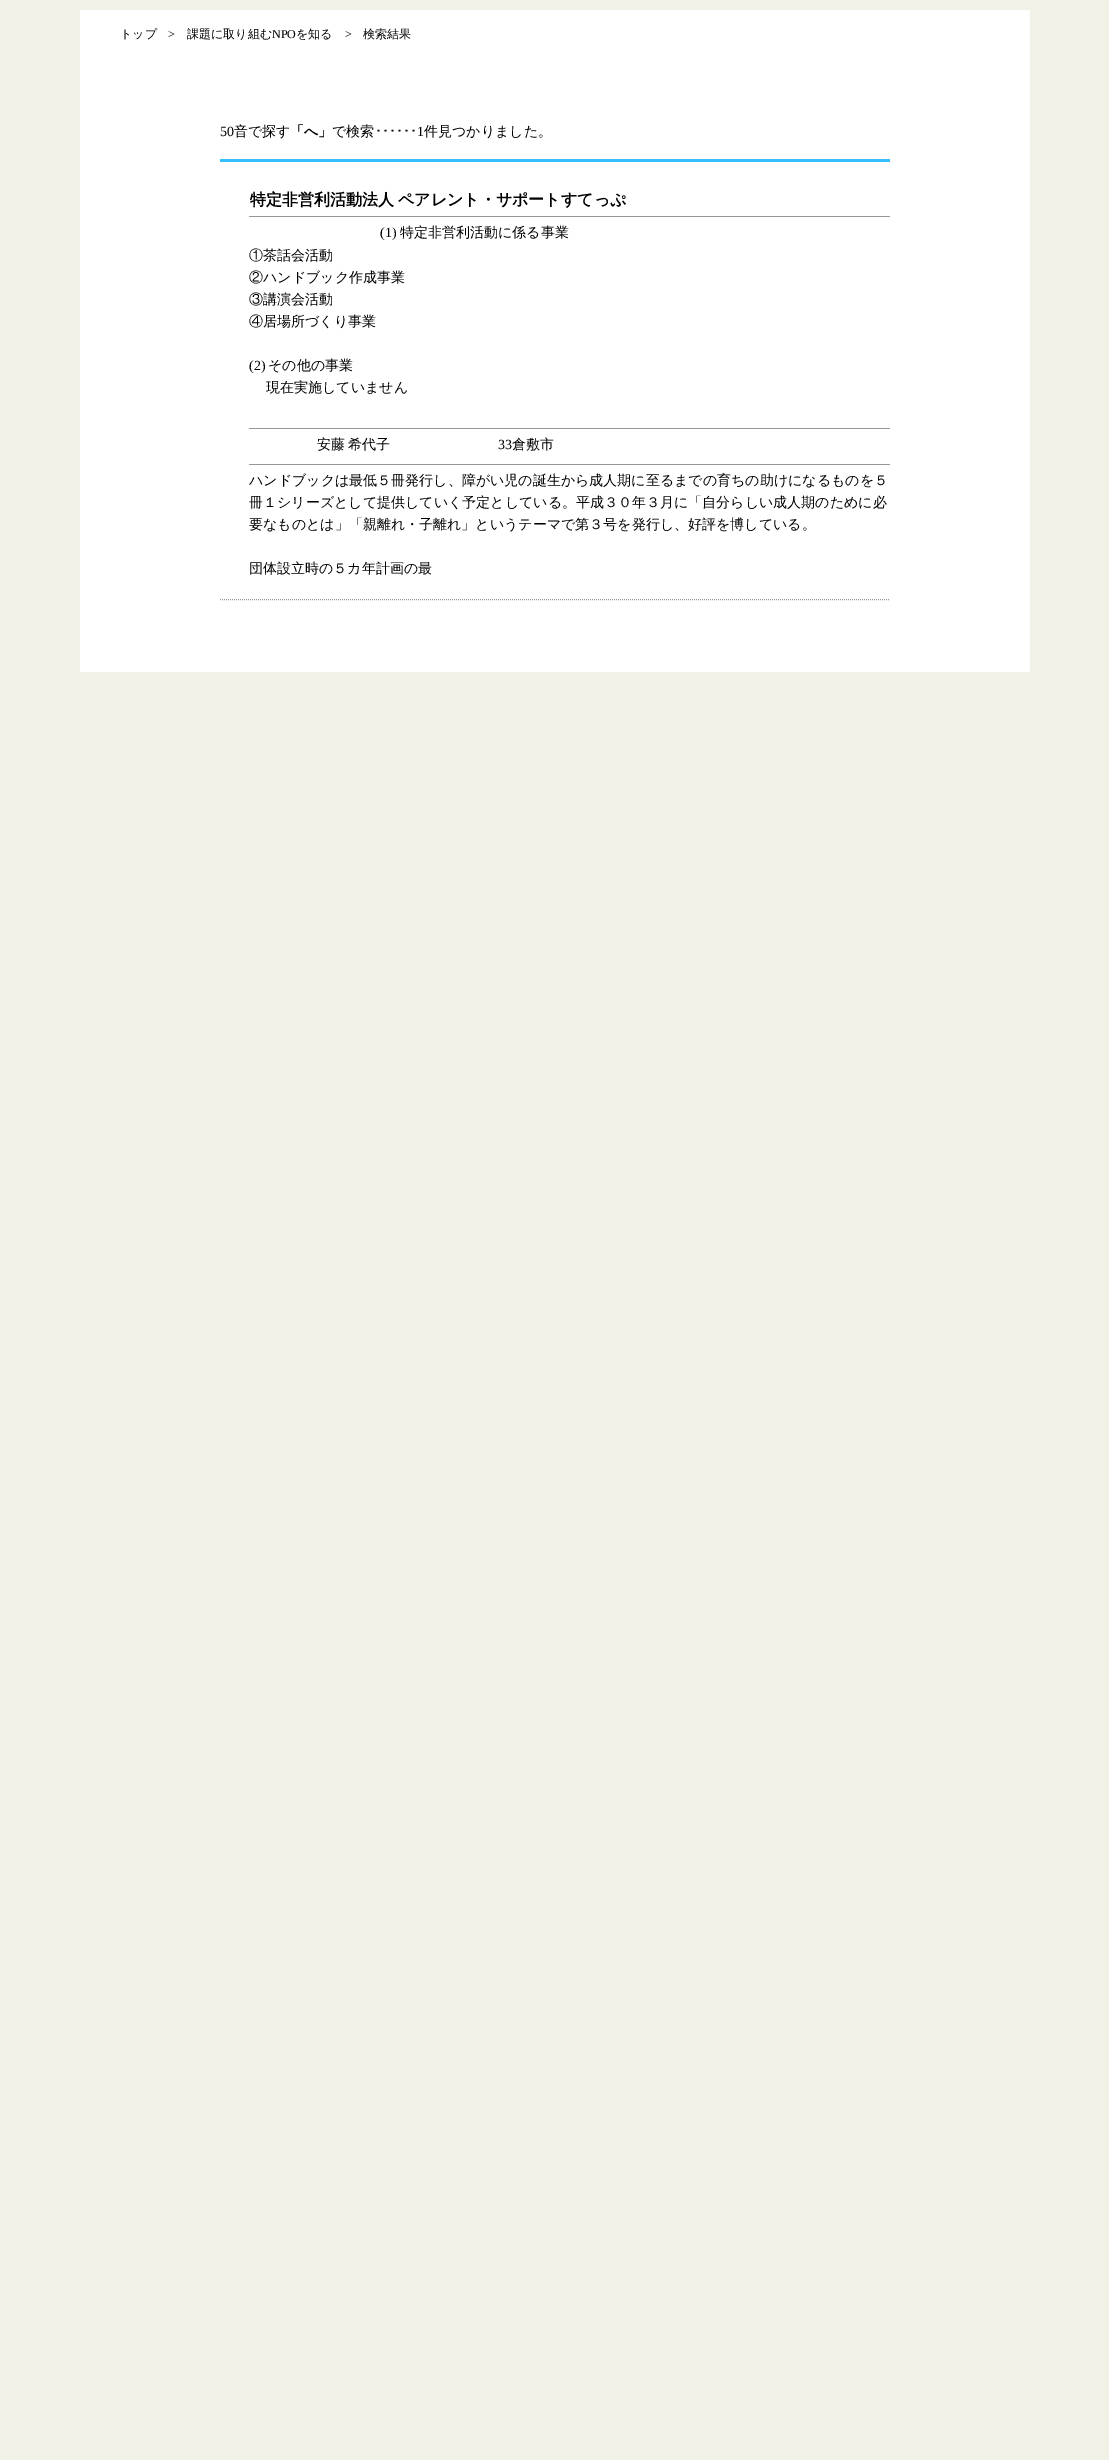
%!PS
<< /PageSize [1109 2460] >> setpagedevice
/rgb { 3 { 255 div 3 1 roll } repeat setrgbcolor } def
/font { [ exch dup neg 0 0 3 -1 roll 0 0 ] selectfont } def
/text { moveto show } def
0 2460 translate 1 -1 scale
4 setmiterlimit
242 241 232 rgb
0 0 1109 2460 rectfill
255 255 255 rgb
80 10 950 662 rectfill
54 190 255 rgb
220 159 670 3 rectfill
150 150 150 rgb
[1 1] 0 setdash
220 599.5 moveto 670 0 rlineto stroke
249 216 641 1 rectfill
249 428 641 1 rectfill
249 464 641 1 rectfill
/WenQuanYiZenHei-Medium 12 font
0 0 0 rgb
(トップ) 120 38 text
/LiberationSerif-Regular 12 font
(>) 168 38 text
/WenQuanYiZenHei-Medium 12 font
(課題に取り組む) 187 38 text
/LiberationSerif-Regular 12 font
(NPO) 272 38 text
/WenQuanYiZenHei-Medium 12 font
(を知る) 296 38 text
/LiberationSerif-Regular 12 font
(>) 345 38 text
/WenQuanYiZenHei-Medium 12 font
(検索結果) 363 38 text
/LiberationSerif-Regular 14 font
(50) 220 136 text
/WenQuanYiZenHei-Medium 14 font
(音で探す) 234 136 text
/WenQuanYiZenHei-Bold 14 font
(「へ」) 290 136 text
/WenQuanYiZenHei-Medium 14 font
(で検索) 332 136 text
/IPAPGothic-Regular 14 font
(･･････) 375 136 text
/LiberationSerif-Regular 14 font
(1) 417 136 text
/WenQuanYiZenHei-Medium 14 font
(件見つかりました。) 424 136 text
/WenQuanYiZenHei-Bold 16 font
250 205 moveto -1 0 32 (特定非営利活動法人 ペアレント・サポートすてっぷ) widthshow
/LiberationSerif-Regular 14 font
(\(1\)) 380 237 text
/WenQuanYiZenHei-Medium 14 font
(特定非営利活動に係る事業) 400 237 text
(①茶話会活動) 249 260 text
(②ハンドブック作成事業) 249 282 text
(③講演会活動) 249 304 text
(④居場所づくり事業) 249 326 text
/LiberationSerif-Regular 14 font
(\(2\)) 249 370 text
/WenQuanYiZenHei-Medium 14 font
(その他の事業) 268 370 text
(現在実施していません) 266 392 text
317 449 moveto -1 0 32 (安藤 希代子) widthshow
/LiberationSerif-Regular 14 font
(33) 498 449 text
/WenQuanYiZenHei-Medium 14 font
(倉敷市) 512 449 text
(ハンドブックは最低５冊発行し、障がい児の誕生から成人期に至るまでの育ちの助けになるものを５) 249 485 text
(冊１シリーズとして提供していく予定としている。平成３０年３月に「自分らしい成人期のために必) 249 507 text
(要なものとは」「親離れ・子離れ」というテーマで第３号を発行し、好評を博している。) 249 529 text
(団体設立時の５カ年計画の最) 249 573 text
showpage
